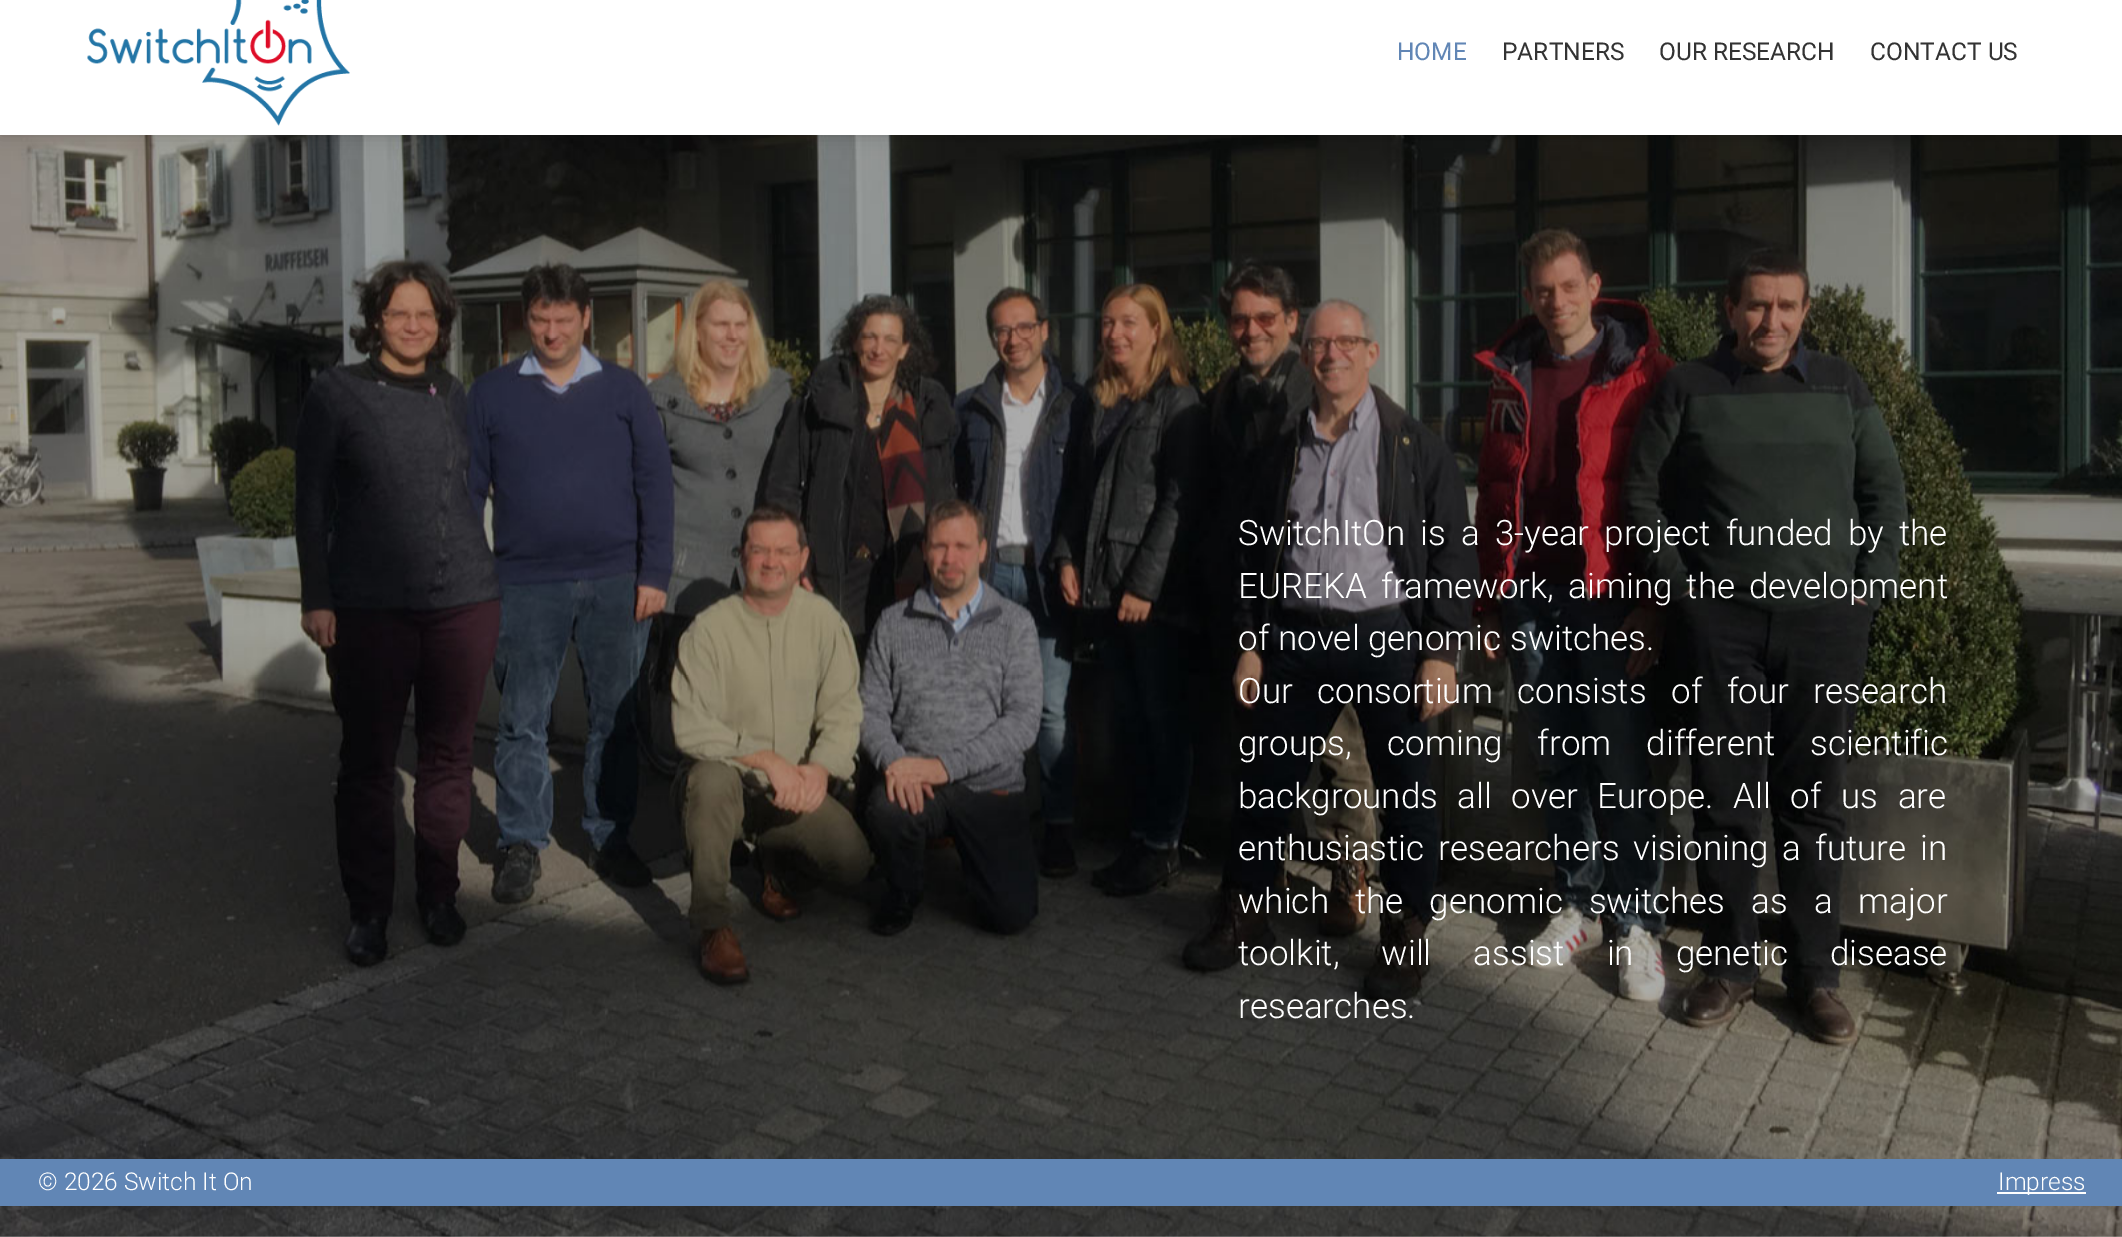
%!PS
<< /PageSize [2122 1237] /PageUsesTransparency true >> setpagedevice
/rgb { 3 { 255 div 3 1 roll } repeat setrgbcolor } def
/font { [ exch dup neg 0 0 3 -1 roll 0 0 ] selectfont } def
/text { moveto show } def
/alpha { dup .setfillconstantalpha .setstrokeconstantalpha } def
/roundrect { 5 dict begin { /r /h /w /y /x } { exch def } forall
  x r add y moveto x w add y 2 copy h add r arct x w add y h add x 1 index r arct
  x y h add x y r arct x y 2 copy exch w add exch r arct closepath end } def
/shadow { 12 dict begin { /a /b /q /h /w /y /x } { exch def } forall gsave /was 0 def
  9 -2 -9 { dup b mul 4 div /e exch def 1 sub .425 mul 2.718 exch exp 1 add a .99 .min exch div /now exch def
    1 1 now sub 1 was sub div sub alpha /was now def
    w h .min e 2 mul add 0 gt { x e sub y e sub w e 2 mul add h e 2 mul add
      q e add b .6 mul add w h .min 2 div e add .min 0 .max roundrect fill } if } for grestore end } def
/picture { 5 dict begin { /h /w /y /x /name } { exch def } forall
  gsave x y translate w h scale
  w h 8 [w 0 0 h 0 0] name (r) file false 3 colorimage grestore end } def
0 .pushpdf14devicefilter
0 1237 translate 1 -1 scale
4 setmiterlimit
255 255 255 rgb
0 0 2122 1237 rectfill
(img_01.rgb) 0 135 2122 1102 picture
0 0 0 rgb
0 -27 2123 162 0 9 0.2 shadow
255 255 255 rgb
0 0 2122 135 rectfill
(img_02.rgb) 87 0 263 126 picture
97 134 181 rgb
0 1159 2122 47 rectfill
255 255 255 rgb
1997 1192 89 2 rectfill
/Roboto-Regular 24.5 font
97 134 181 rgb
(HOME) 1397 60 text
51 51 51 rgb
(PARTNERS) 1502 60 text
(OUR RESEARCH) 1659 60 text
(CONTACT US) 1870 60 text
/Roboto-Light 35 font
255 255 255 rgb
1238 545 moveto 6.5 0 32 (SwitchItOn is a 3-year project funded by the) widthshow
1238 598 moveto 5.5 0 32 (EUREKA framework, aiming the development) widthshow
(of novel genomic switches.) 1238 650 text
1238 703 moveto 16 0 32 (Our consortium consists of four research) widthshow
1238 755 moveto 26.5 0 32 (groups, coming from different scientific) widthshow
1238 808 moveto 11 0 32 (backgrounds all over Europe. All of us are) widthshow
1238 860 moveto 5.25 0 32 (enthusiastic researchers visioning a future in) widthshow
1238 913 moveto 17.5 0 32 (which the genomic switches as a major) widthshow
1238 965 moveto 33.5 0 32 (toolkit, will assist in genetic disease) widthshow
(researches.) 1238 1018 text
/Roboto-Light 24.5 font
(© 2026 Switch It On) 38 1190 text
(Impress) 1998 1190 text
.poppdf14devicefilter showpage
